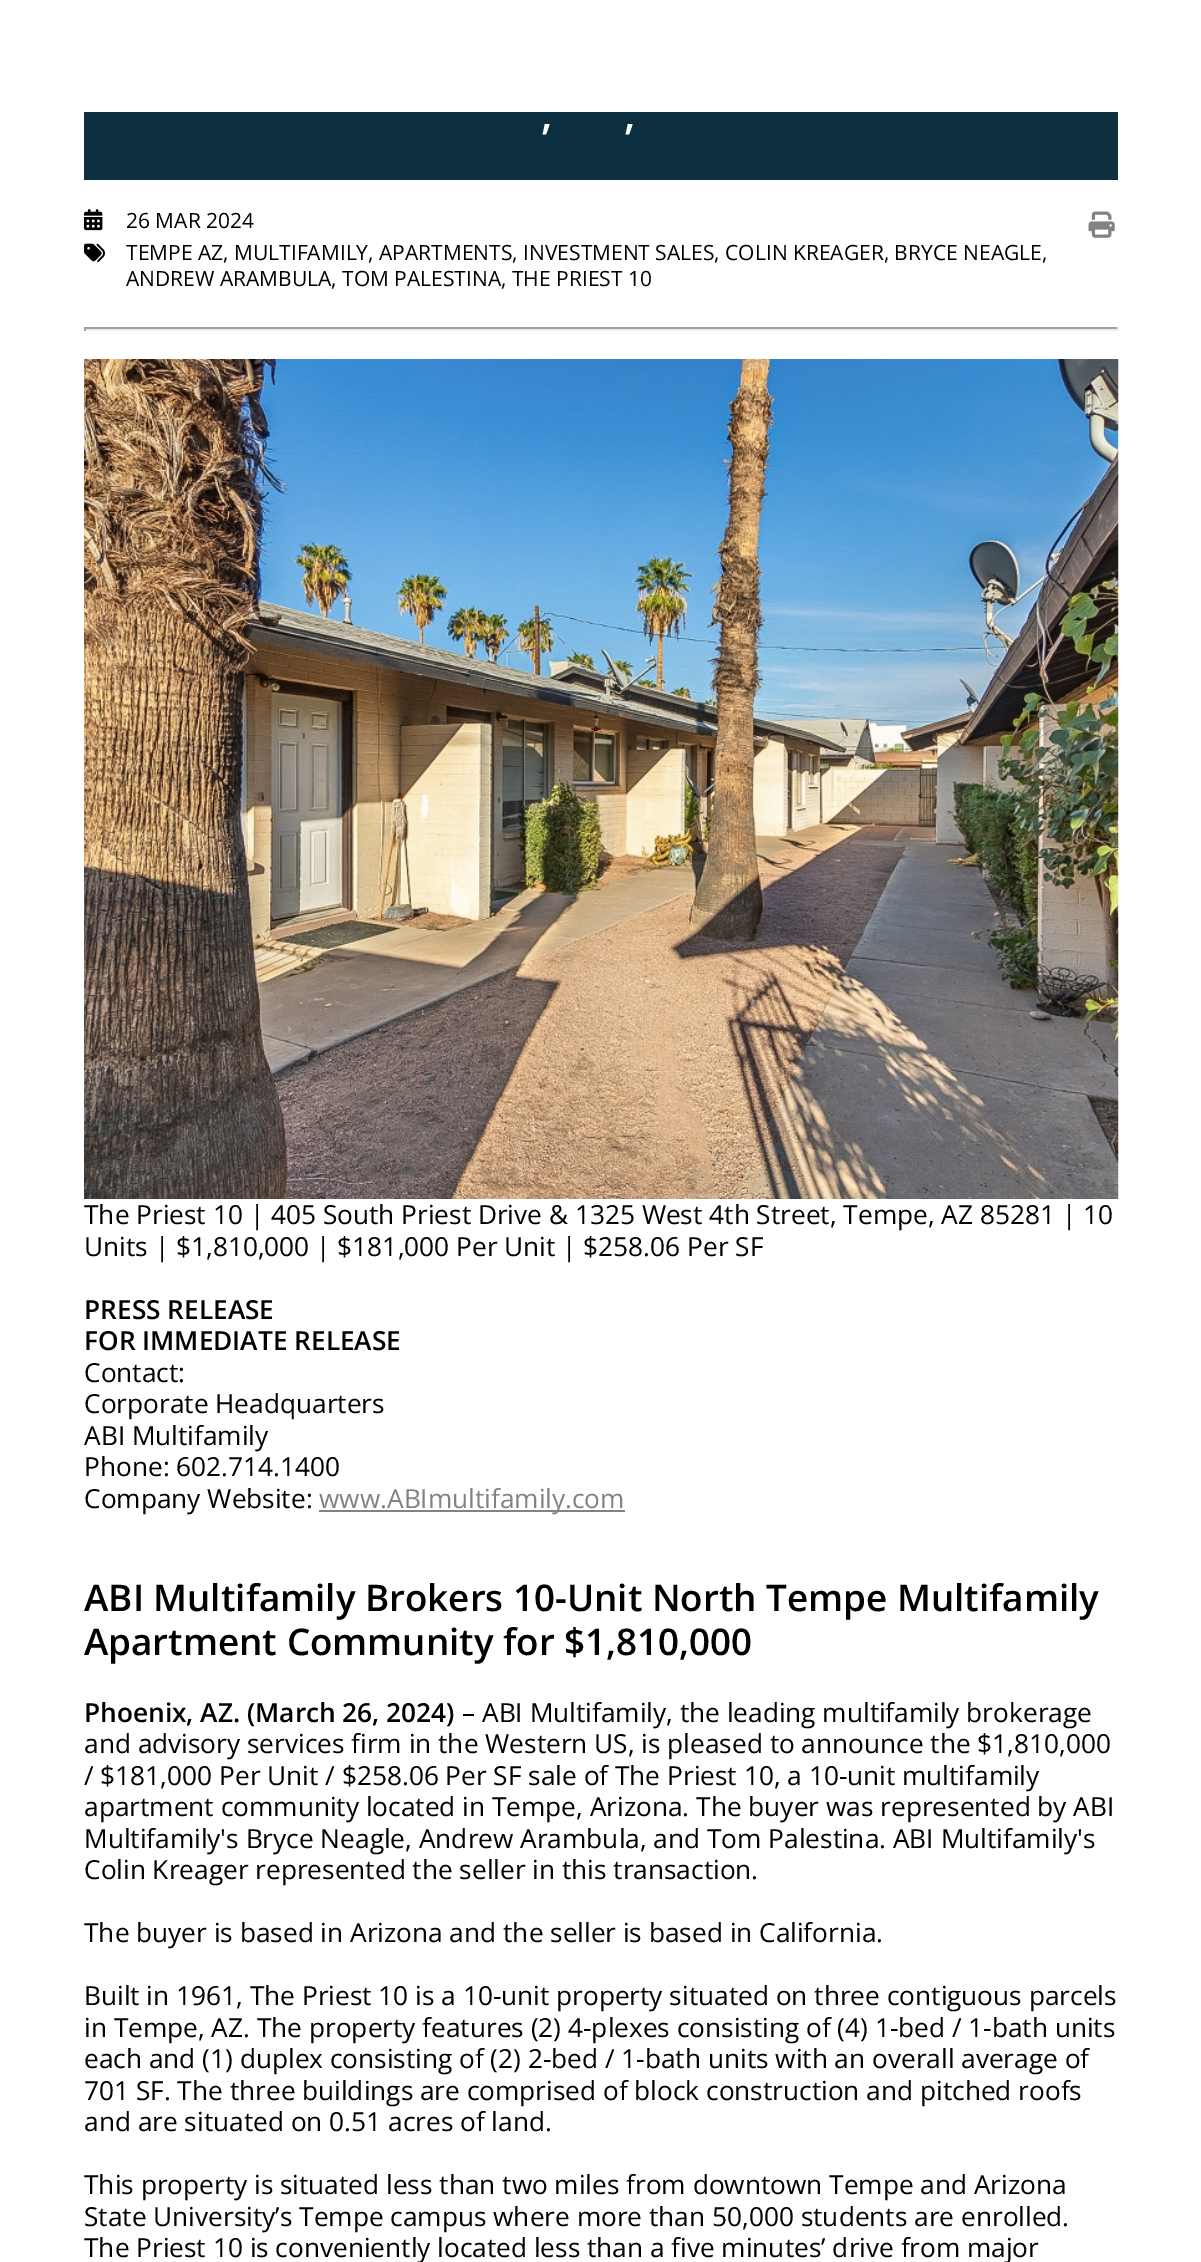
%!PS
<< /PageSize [1201 2262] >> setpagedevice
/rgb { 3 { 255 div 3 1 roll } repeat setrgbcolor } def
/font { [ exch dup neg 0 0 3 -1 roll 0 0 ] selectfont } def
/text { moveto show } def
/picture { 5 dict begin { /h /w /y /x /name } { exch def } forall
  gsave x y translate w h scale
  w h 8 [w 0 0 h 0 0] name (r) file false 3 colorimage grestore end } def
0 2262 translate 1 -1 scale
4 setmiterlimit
255 255 255 rgb
0 0 1201 2262 rectfill
13 48 64 rgb
84 112 1034 68 rectfill
(img_01.rgb) 84 209 19 22 picture
(img_02.rgb) 1088 211 27 27 picture
(img_03.rgb) 84 243 21 19 picture
159 159 159 rgb
84 327 1034 2 rectfill
238 238 238 rgb
1117 327 2 4 rectfill
84 329 1034 2 rectfill
159 159 159 rgb
84 327 2 4 rectfill
(img_04.rgb) 84 359 1035 840 picture
128 130 133 rgb
319 1510 306 2 rectfill
/OpenSans-SemiBold 42 font
255 255 255 rgb
(,) 541 129 text
(,) 624 129 text
/OpenSans-Regular 21 font
0 0 0 rgb
(26 MAR 2024) 126 228 text
(TEMPE AZ, MULTIFAMILY, APARTMENTS, INVESTMENT SALES, COLIN KREAGER, BRYCE NEAGLE,) 126 260 text
(ANDREW ARAMBULA, TOM PALESTINA, THE PRIEST 10) 126 286 text
/OpenSans-Regular 26.25 font
(The Priest 10 | 405 South Priest Drive & 1325 West 4th Street, Tempe, AZ 85281 | 10) 84 1224 text
(Units | $1,810,000 | $181,000 Per Unit | $258.06 Per SF) 84 1256 text
/OpenSans-SemiBold 26.25 font
(PRESS RELEASE) 84 1319 text
(FOR IMMEDIATE RELEASE) 84 1350 text
/OpenSans-Regular 26.25 font
(Contact:) 84 1382 text
(Corporate Headquarters) 84 1413 text
(ABI Multifamily) 84 1445 text
(Phone: 602.714.1400) 84 1476 text
(Company Website:) 84 1508 text
128 130 133 rgb
(www.ABImultifamily.com) 319 1508 text
/OpenSans-SemiBold 36.75 font
0 0 0 rgb
(ABI Multifamily Brokers 10-Unit North Tempe Multifamily) 84 1611 text
(Apartment Community for $1,810,000) 84 1655 text
/OpenSans-SemiBold 26.25 font
(Phoenix, AZ. \(March 26, 2024\)) 84 1722 text
/OpenSans-Regular 26.25 font
(– ABI Multifamily, the leading multifamily brokerage) 462 1722 text
(and advisory services firm in the Western US, is pleased to announce the $1,810,000) 84 1753 text
(/ $181,000 Per Unit / $258.06 Per SF sale of The Priest 10, a 10-unit multifamily) 84 1785 text
(apartment community located in Tempe, Arizona. The buyer was represented by ABI) 84 1816 text
(Multifamily's Bryce Neagle, Andrew Arambula, and Tom Palestina. ABI Multifamily's) 84 1848 text
(Colin Kreager represented the seller in this transaction.) 84 1879 text
(The buyer is based in Arizona and the seller is based in California.) 84 1942 text
(Built in 1961, The Priest 10 is a 10-unit property situated on three contiguous parcels) 84 2005 text
(in Tempe, AZ. The property features \(2\) 4-plexes consisting of \(4\) 1-bed / 1-bath units) 84 2037 text
(each and \(1\) duplex consisting of \(2\) 2-bed / 1-bath units with an overall average of) 84 2068 text
(701 SF. The three buildings are comprised of block construction and pitched roofs) 84 2100 text
(and are situated on 0.51 acres of land.) 84 2131 text
(This property is situated less than two miles from downtown Tempe and Arizona) 84 2194 text
(State University’s Tempe campus where more than 50,000 students are enrolled.) 84 2226 text
(The Priest 10 is conveniently located less than a five minutes’ drive from major) 84 2257 text
showpage
